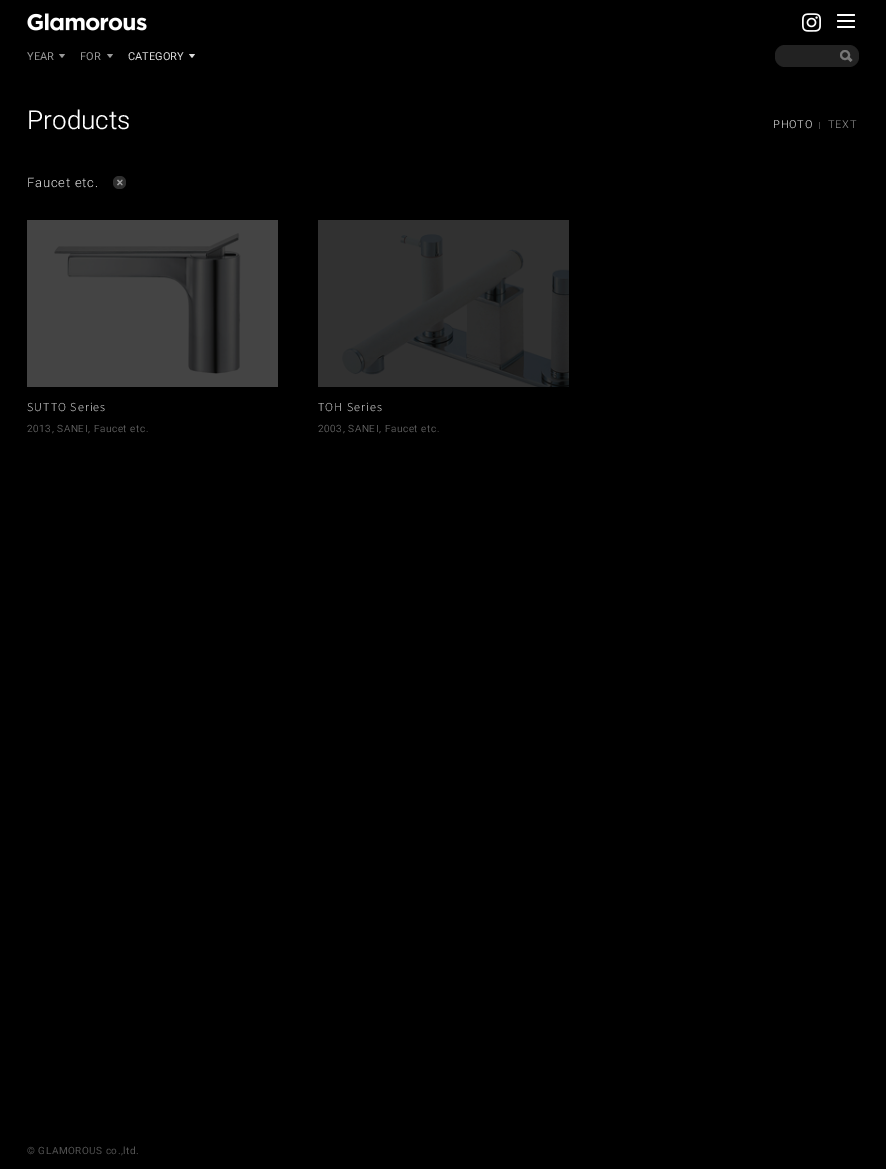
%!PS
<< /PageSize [886 1169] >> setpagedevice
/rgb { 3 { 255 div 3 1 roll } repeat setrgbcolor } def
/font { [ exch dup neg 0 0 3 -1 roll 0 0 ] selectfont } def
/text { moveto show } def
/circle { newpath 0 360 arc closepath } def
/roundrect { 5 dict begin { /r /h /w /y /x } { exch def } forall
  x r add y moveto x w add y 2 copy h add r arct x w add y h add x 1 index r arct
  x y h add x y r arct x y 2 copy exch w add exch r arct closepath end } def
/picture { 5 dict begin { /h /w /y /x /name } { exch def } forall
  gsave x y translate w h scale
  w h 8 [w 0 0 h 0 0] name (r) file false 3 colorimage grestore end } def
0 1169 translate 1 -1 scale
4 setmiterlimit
0 0 0 rgb
0 0 886 1169 rectfill
255 255 255 rgb
837 14 18 2 1 roundrect fill
837 20 18 2 1 roundrect fill
837 26 18 2 1 roundrect fill
(img_01.rgb) 27 13 120 18 picture
(img_02.rgb) 802 13 19 19 picture
153 153 153 rgb
59 54 moveto 6 0 rlineto -3 4 rlineto closepath fill
107 54 moveto 6 0 rlineto -3 4 rlineto closepath fill
221 221 221 rgb
189 54 moveto 6 0 rlineto -3 4 rlineto closepath fill
34 34 34 rgb
785 45 moveto 50 0 rlineto 0 22 rlineto -50 0 rlineto -5.5 0 -10 -4.5 -10 -10 rcurveto 0 -2 rlineto 0 -5.5 4.5 -10 10 -10 rcurveto closepath fill
835 45 moveto 14 0 rlineto 5.5 0 10 4.5 10 10 rcurveto 0 2 rlineto 0 5.5 -4.5 10 -10 10 rcurveto -14 0 rlineto closepath fill
119 119 119 rgb
2 setlinewidth
845 55 4 circle stroke
849 56.5 moveto 3.5 3.5 rlineto -2 2 rlineto -3.5 -3.5 rlineto closepath fill
68 68 68 rgb
819 122 1 7 rectfill
47 47 47 rgb
113 176 13 13 6 roundrect fill
157 157 157 rgb
118 179.5 moveto 4.5 5 rlineto -0.5 1 rlineto -5 -5 rlineto closepath fill
117 184.5 moveto 5 -5 rlineto 0.5 1 rlineto -4.5 5 rlineto closepath fill
8 8 8 rgb
27 220 251 167 rectfill
(img_03.rgb) 27 220 251 167 picture
318 220 251 167 rectfill
(img_04.rgb) 318 220 251 167 picture
/Heebo-Regular 11 font
153 153 153 rgb
(YEAR) 27 60 text
(FOR) 80 60 text
221 221 221 rgb
(CATEGORY) 128 60 text
/Heebo-Light 26 font
255 255 255 rgb
(Products) 27 129 text
/Heebo-Light 11 font
221 221 221 rgb
773 128 moveto 0.75 0 (PHOTO) ashow
136 136 136 rgb
828 128 moveto 0.75 0 (TEXT) ashow
/Heebo-Light 13 font
205 205 205 rgb
27 187 moveto 0.75 0 (Faucet etc.) ashow
/NotoSansJP-Light 11 font
27 411 moveto 1 0 (SUTTO Series) ashow
/Heebo-Light 10 font
110 110 110 rgb
27 432 moveto 0.6 0 (2013, SANEI, Faucet etc.) ashow
/NotoSansJP-Light 11 font
205 205 205 rgb
318 411 moveto 1 0 (TOH Series) ashow
/Heebo-Light 10 font
110 110 110 rgb
318 432 moveto 0.6 0 (2003, SANEI, Faucet etc.) ashow
/Heebo-Regular 10 font
82 82 82 rgb
27 1154 moveto 0.5 0 (© GLAMOROUS co.,ltd.) ashow
showpage
